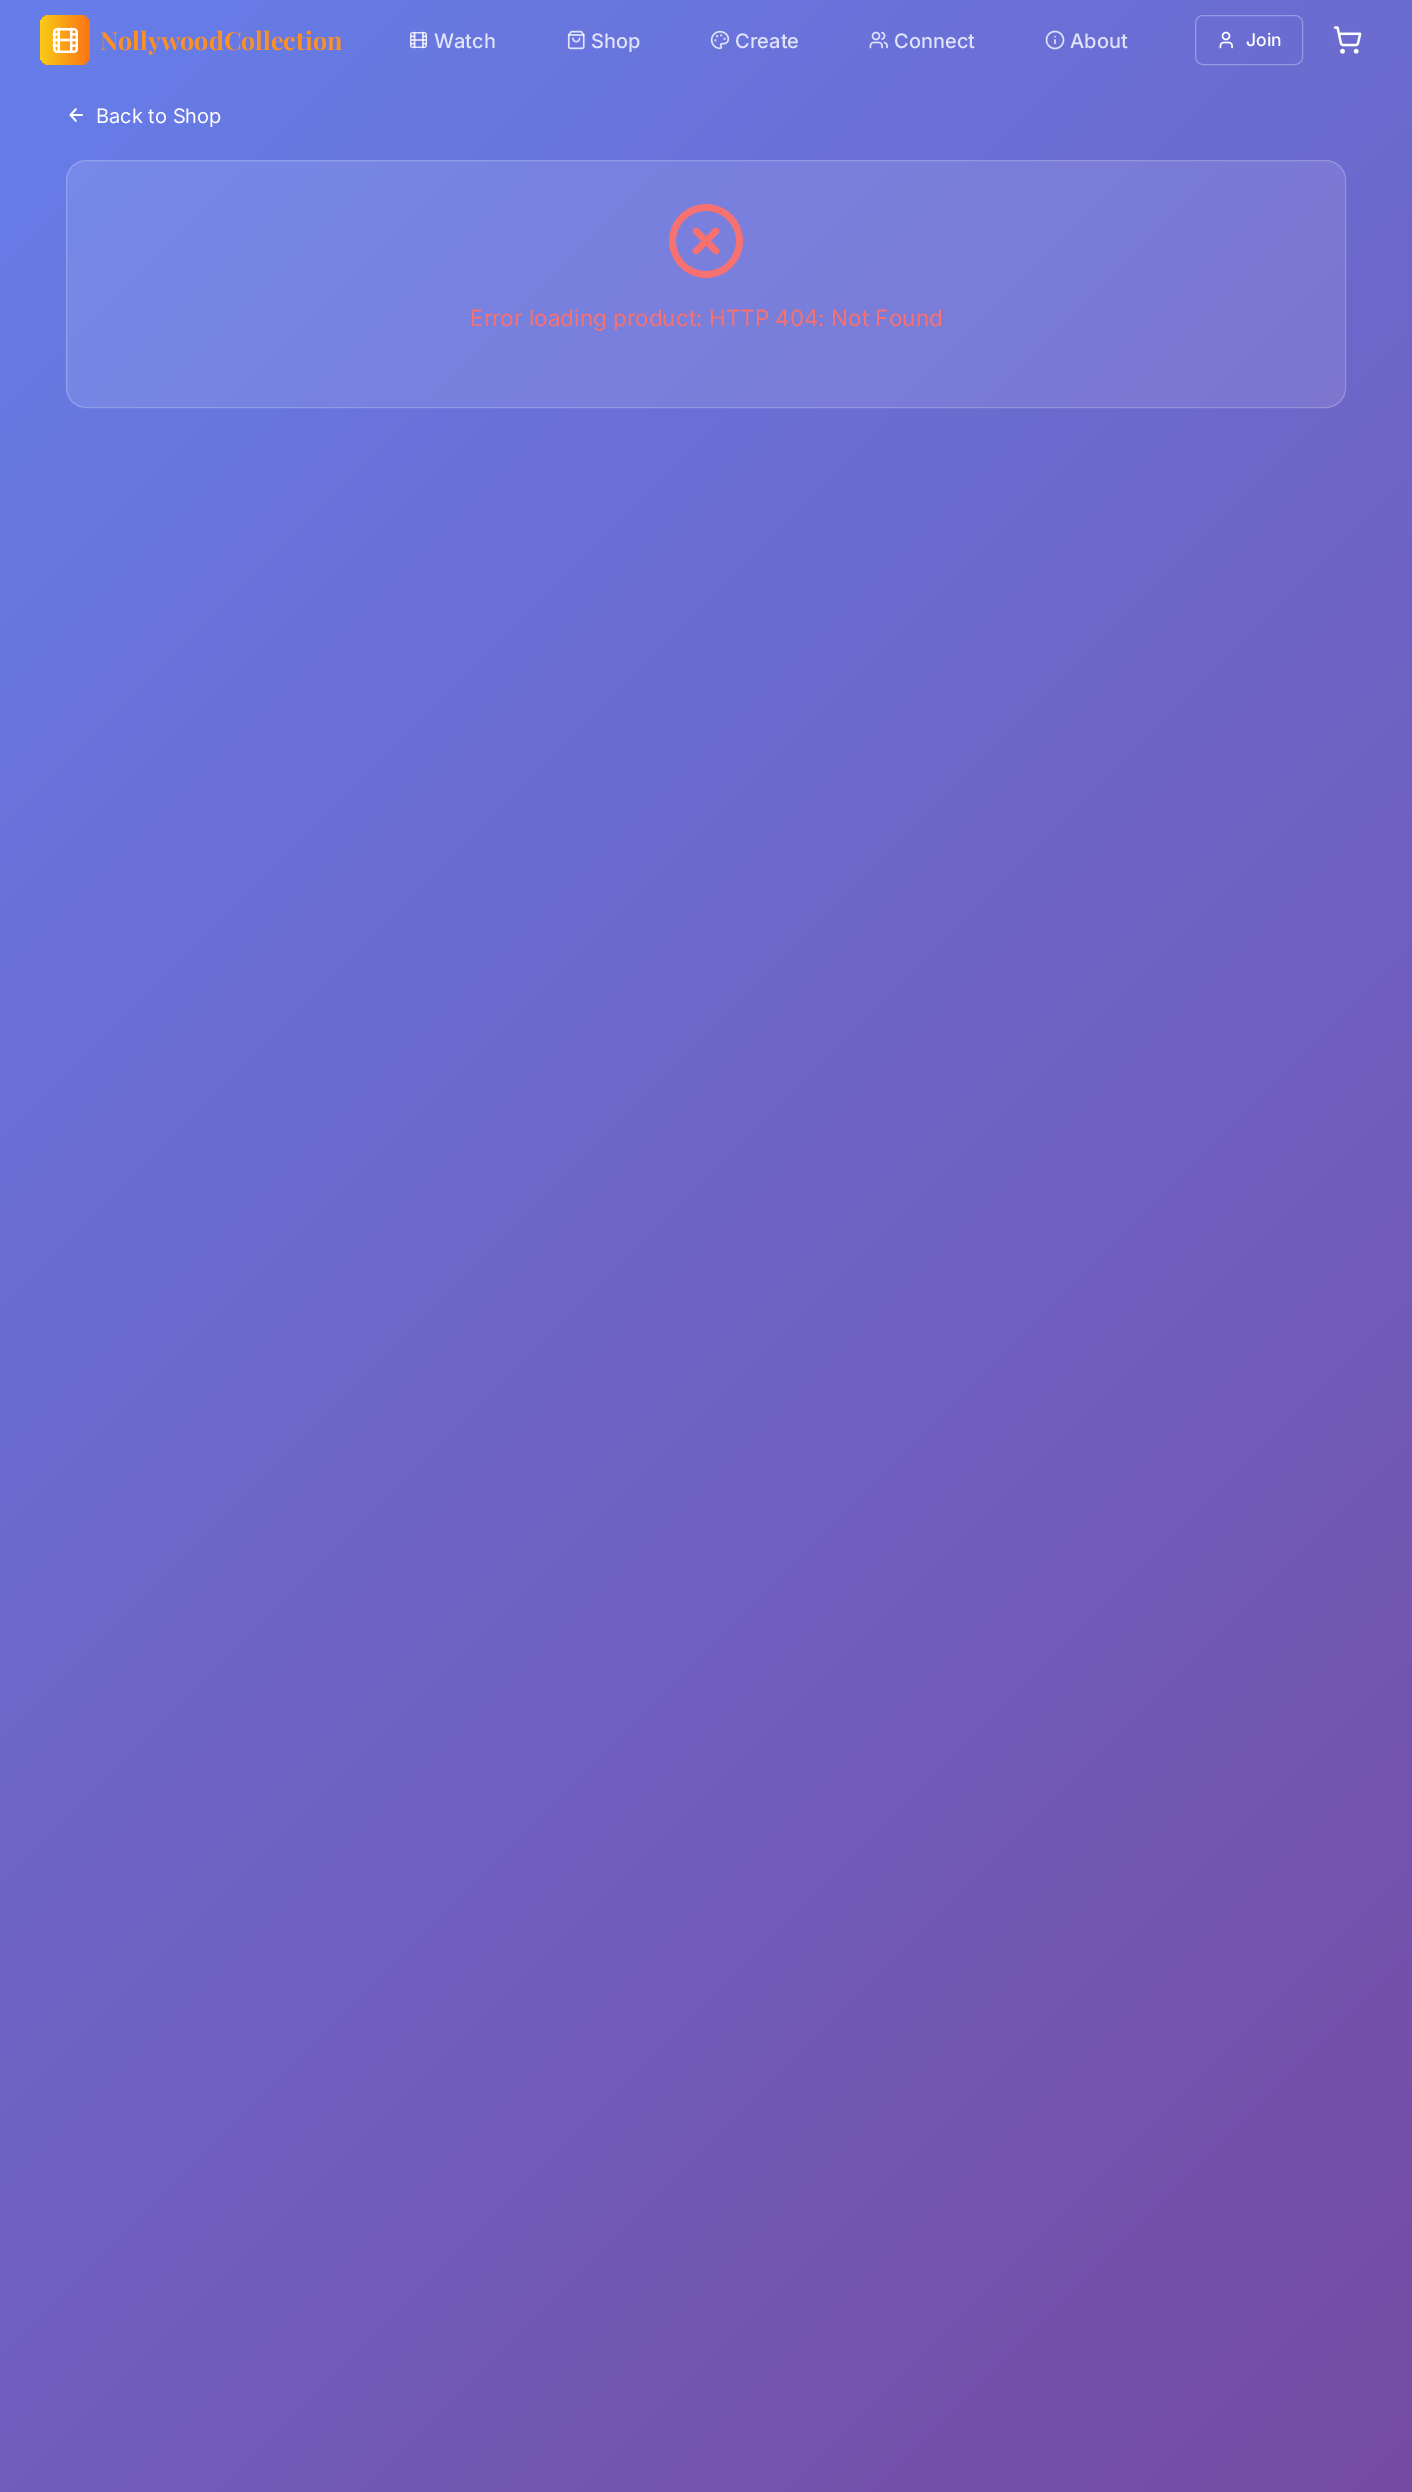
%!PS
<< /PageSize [1412 2492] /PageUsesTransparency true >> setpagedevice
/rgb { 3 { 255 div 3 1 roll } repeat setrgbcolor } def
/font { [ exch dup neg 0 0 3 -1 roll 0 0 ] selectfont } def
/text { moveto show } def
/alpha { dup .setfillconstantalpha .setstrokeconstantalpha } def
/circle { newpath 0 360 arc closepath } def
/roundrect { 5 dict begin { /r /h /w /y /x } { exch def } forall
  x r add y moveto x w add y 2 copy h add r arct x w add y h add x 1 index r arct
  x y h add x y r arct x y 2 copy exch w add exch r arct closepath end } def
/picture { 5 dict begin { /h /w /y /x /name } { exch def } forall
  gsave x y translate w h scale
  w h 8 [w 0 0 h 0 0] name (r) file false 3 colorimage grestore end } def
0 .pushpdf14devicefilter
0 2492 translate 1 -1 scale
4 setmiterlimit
255 255 255 rgb
0 0 1412 2492 rectfill
gsave 0 0 moveto 1412 0 rlineto 0 2492 rlineto -1412 0 rlineto closepath clip newpath
<< /ShadingType 2 /ColorSpace /DeviceRGB /Coords [-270 270 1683 2223] /Extend [true true] /Function << /FunctionType 2 /Domain [0 1] /C0 [0.4 0.494 0.918] /C1 [0.463 0.294 0.635] /N 1 >> >> shfill grestore
gsave 40 15 50 50 10 roundrect clip newpath
<< /ShadingType 2 /ColorSpace /DeviceRGB /Coords [40 40 90 40] /Extend [true true] /Function << /FunctionType 2 /Domain [0 1] /C0 [0.98 0.8 0.082] /C1 [0.976 0.451 0.086] /N 1 >> >> shfill grestore
(img_01.rgb) 52 27 26 26 picture
(img_02.rgb) 410 31 18 18 picture
(img_03.rgb) 567 30 18 20 picture
(img_04.rgb) 710 30 20 20 picture
(img_05.rgb) 869 31 19 18 picture
(img_06.rgb) 1045 30 20 20 picture
0.3 alpha
1195.5 15.5 107 49 7.5 roundrect stroke
1 alpha
(img_07.rgb) 1219 31 14 18 picture
(img_08.rgb) 1333 26 29 28 picture
1.7 setlinewidth
1 setlinecap
1 setlinejoin
76 121 moveto -5.5 -6 rlineto 5.5 -6 rlineto 82 115 moveto -11.5 0 rlineto stroke
0.1 alpha
66 160 1280 248 20 roundrect fill
0.2 alpha
1 setlinewidth
0 setlinecap
0 setlinejoin
66.5 160.5 1279 247 19.5 roundrect stroke
1 alpha
248 113 113 rgb
6.7 setlinewidth
706 241 33.5 circle stroke
1 setlinecap
1 setlinejoin
716 231 moveto -20 20 rlineto 696 231 moveto 20 20 rlineto stroke
/PlayfairDisplay-Bold 25 font
253 144 34 rgb
(NollywoodCollection) 100 50 text
/Inter-Medium 20 font
225 228 249 rgb
(Watch) 434 48 text
(Shop) 591 48 text
(Create) 735 48 text
(Connect) 894 48 text
(About) 1070 48 text
/Inter-Medium 17.5 font
255 255 255 rgb
(Join) 1246 46 text
/Inter-Regular 20 font
(Back to Shop) 96 123 text
/Inter-Regular 22.5 font
248 113 113 rgb
(Error loading product: HTTP 404: Not Found) 470 326 text
.poppdf14devicefilter showpage
